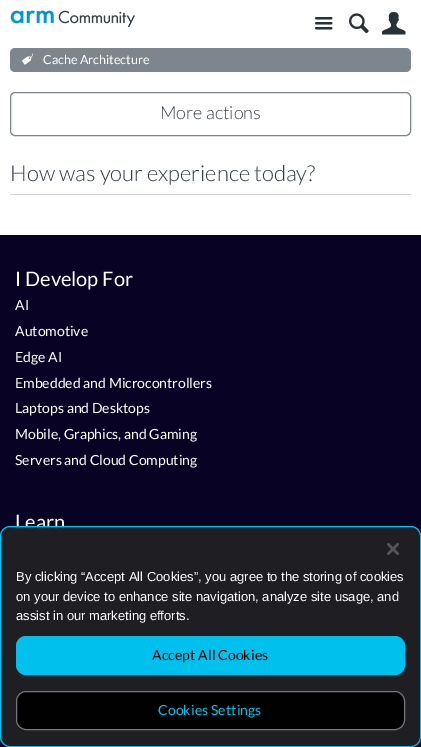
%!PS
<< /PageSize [421 747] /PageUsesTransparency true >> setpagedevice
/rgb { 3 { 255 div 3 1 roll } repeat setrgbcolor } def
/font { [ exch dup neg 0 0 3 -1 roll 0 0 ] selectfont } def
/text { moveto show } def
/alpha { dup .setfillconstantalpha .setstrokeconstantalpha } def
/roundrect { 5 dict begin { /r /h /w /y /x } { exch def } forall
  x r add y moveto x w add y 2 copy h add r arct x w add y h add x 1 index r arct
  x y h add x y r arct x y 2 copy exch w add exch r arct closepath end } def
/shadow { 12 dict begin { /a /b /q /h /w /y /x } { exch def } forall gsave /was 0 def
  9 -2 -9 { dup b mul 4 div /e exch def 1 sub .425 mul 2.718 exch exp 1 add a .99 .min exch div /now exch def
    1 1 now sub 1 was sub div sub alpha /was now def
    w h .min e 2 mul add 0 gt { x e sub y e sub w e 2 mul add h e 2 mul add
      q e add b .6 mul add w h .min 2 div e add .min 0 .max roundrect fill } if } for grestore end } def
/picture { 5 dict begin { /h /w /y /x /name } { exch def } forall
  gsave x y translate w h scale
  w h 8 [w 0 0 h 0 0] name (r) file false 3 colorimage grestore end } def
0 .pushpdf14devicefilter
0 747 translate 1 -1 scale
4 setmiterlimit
255 255 255 rgb
0 0 421 747 rectfill
(img_01.rgb) 10 10 125 17 picture
(img_02.rgb) 315 17 18 13 picture
(img_03.rgb) 349 13 20 21 picture
(img_04.rgb) 382 12 24 23 picture
125 134 140 rgb
10 48 401 24 5 roundrect fill
(img_05.rgb) 22 53 11 12 picture
10.5 92.5 400 43 4.5 roundrect stroke
212 213 213 rgb
10 194 401 1 rectfill
8 2 37 rgb
0 235 421 512 rectfill
gsave
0 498 moveto 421 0 rlineto 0 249 rlineto -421 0 rlineto closepath 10 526 moveto 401 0 rlineto 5.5 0 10 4.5 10 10 rcurveto 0 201 rlineto 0 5.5 -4.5 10 -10 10 rcurveto -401 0 rlineto -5.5 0 -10 -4.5 -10 -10 rcurveto 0 -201 rlineto 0 -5.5 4.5 -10 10 -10 rcurveto closepath eoclip newpath
0 0 0 rgb
0 526 421 221 10 9 0.2 shadow
grestore
/Lato-Regular 12.5 font
255 255 255 rgb
(Cache Architecture) 43 64 text
/Lato-Light 18 font
51 62 72 rgb
(More actions) 160 119 text
/Lato-Light 22 font
(How was your experience today?) 10 181 text
/Lato-Regular 20 font
255 255 255 rgb
(I Develop For) 15 286 text
/Lato-Regular 14 font
(AI) 15 310 text
(Automotive) 15 336 text
(Edge AI) 15 362 text
(Embedded and Microcontrollers) 15 388 text
(Laptops and Desktops) 15 413 text
(Mobile, Graphics, and Gaming) 15 439 text
(Servers and Cloud Computing) 15 465 text
/Lato-Regular 20 font
(Learn) 15 529 text
0.95 alpha
31 32 35 rgb
0.5 526.5 420 220 9.5 roundrect fill
1 alpha
0 193 237 rgb
0.5 526.5 420 220 9.5 roundrect stroke
(img_06.rgb) 387 543 12 12 picture
/LiberationSans-Regular 13 font
255 255 255 rgb
(By clicking “Accept All Cookies”, you agree to the storing of cookies) 16 581 text
(on your device to enhance site navigation, analyze site usage, and) 16 601 text
(assist in our marketing efforts.) 16 620 text
0 193 237 rgb
16.5 636.5 388 38 9.5 roundrect gsave fill grestore
stroke
/Lato-Regular 14 font
0 0 0 rgb
152 660 moveto 0.1 0 (Accept All Cookies) ashow
1 1 1 rgb
16 691 389 39 10 roundrect fill
0.7 alpha
163 168 174 rgb
16.5 691.5 388 38 9.5 roundrect stroke
1 alpha
0 193 237 rgb
158 715 moveto 0.1 0 (Cookies Settings) ashow
.poppdf14devicefilter showpage
